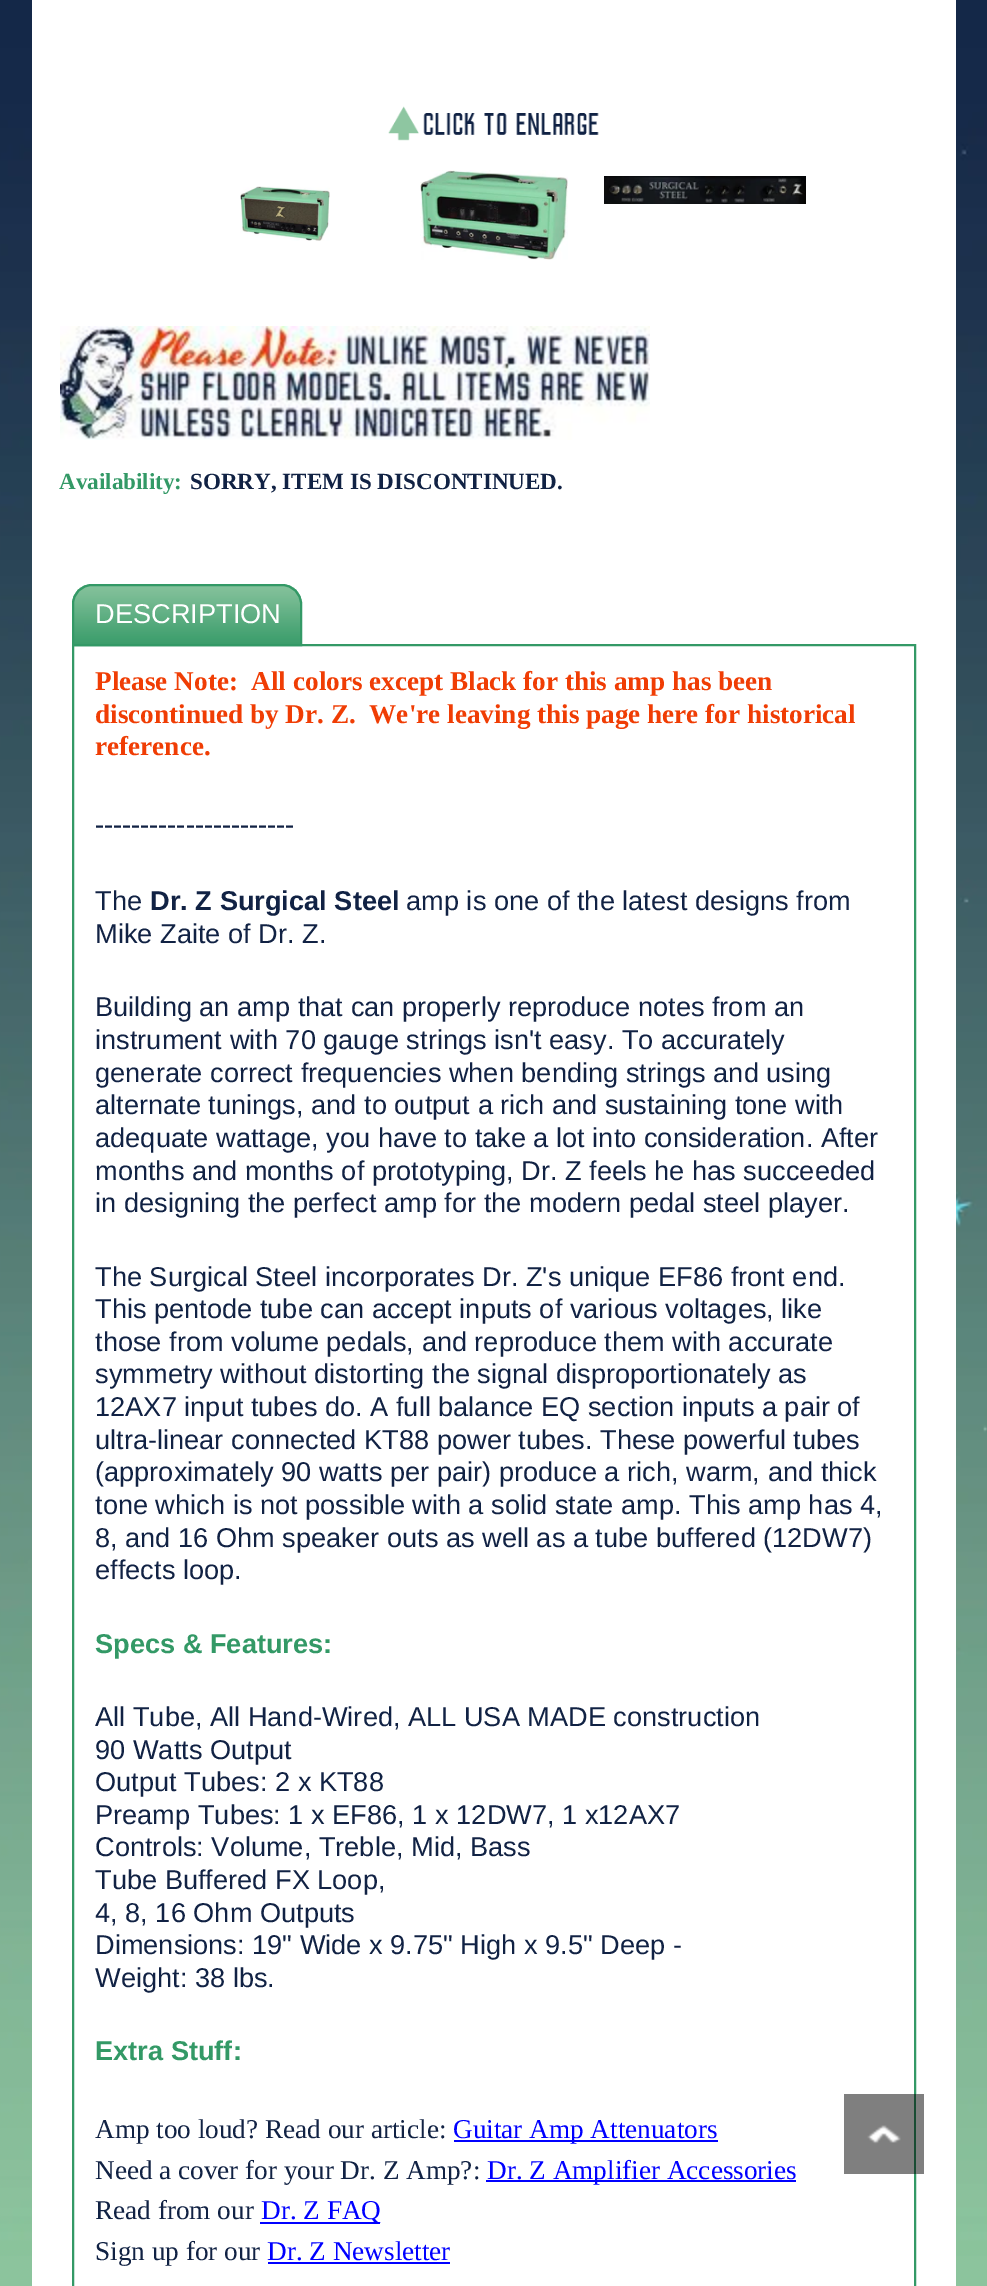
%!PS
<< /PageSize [987 2286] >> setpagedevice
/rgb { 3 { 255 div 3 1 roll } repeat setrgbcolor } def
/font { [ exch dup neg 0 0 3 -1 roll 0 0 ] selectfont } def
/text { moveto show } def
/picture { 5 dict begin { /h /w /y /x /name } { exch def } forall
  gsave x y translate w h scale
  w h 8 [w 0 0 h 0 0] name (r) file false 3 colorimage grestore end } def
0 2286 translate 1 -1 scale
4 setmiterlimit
255 255 255 rgb
0 0 987 2286 rectfill
(img_01.rgb) 0 0 987 2286 picture
32 0 924 2286 rectfill
(img_02.rgb) 388 106 211 35 picture
(img_03.rgb) 240 186 90 55 picture
(img_04.rgb) 420 170 148 90 picture
(img_05.rgb) 604 176 202 28 picture
(img_06.rgb) 60 326 590 114 picture
(img_07.rgb) 72 584 230 60 picture
51 153 102 rgb
2 setlinewidth
73 645 842 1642 rectstroke
92 585 moveto 190 0 rlineto 10.5 0 19 8.5 19 19 rcurveto 0 41 rlineto -228 0 rlineto 0 -41 rlineto 0 -10.5 8.5 -19 19 -19 rcurveto closepath stroke
0 0 255 rgb
454 2140 264 2 rectfill
486 2180 310 2 rectfill
260 2222 120 2 rectfill
268 2262 182 2 rectfill
(img_08.rgb) 844 2094 80 80 picture
/LiberationSerif-Bold 23.1 font
51 153 102 rgb
(Availability:) 59 489 text
17 34 68 rgb
(SORRY, ITEM IS DISCONTINUED.) 190 489 text
/LiberationSans-Regular 27.2 font
255 255 255 rgb
(DESCRIPTION) 95 623 text
/LiberationSerif-Bold 27.2 font
240 61 4 rgb
(Please Note:  All colors except Black for this amp has been) 95 690 text
(discontinued by Dr. Z.  We're leaving this page here for historical) 95 723 text
(reference.) 95 755 text
17 34 68 rgb
(----------------------) 95 833 text
/LiberationSans-Regular 27.2 font
(The) 95 910 text
/LiberationSans-Bold 27.2 font
(Dr. Z Surgical Steel) 150 910 text
/LiberationSans-Regular 27.2 font
(amp is one of the latest designs from) 406 910 text
(Mike Zaite of Dr. Z.) 95 943 text
(Building an amp that can properly reproduce notes from an) 95 1016 text
(instrument with 70 gauge strings isn't easy. To accurately) 95 1049 text
(generate correct frequencies when bending strings and using) 95 1082 text
(alternate tunings, and to output a rich and sustaining tone with) 95 1114 text
(adequate wattage, you have to take a lot into consideration. After) 95 1147 text
(months and months of prototyping, Dr. Z feels he has succeeded) 95 1180 text
(in designing the perfect amp for the modern pedal steel player.) 95 1212 text
(The Surgical Steel incorporates Dr. Z's unique EF86 front end.) 95 1286 text
(This pentode tube can accept inputs of various voltages, like) 95 1318 text
(those from volume pedals, and reproduce them with accurate) 95 1351 text
(symmetry without distorting the signal disproportionately as) 95 1383 text
(12AX7 input tubes do. A full balance EQ section inputs a pair of) 95 1416 text
(ultra-linear connected KT88 power tubes. These powerful tubes) 95 1449 text
(\(approximately 90 watts per pair\) produce a rich, warm, and thick) 95 1481 text
(tone which is not possible with a solid state amp. This amp has 4,) 95 1514 text
(8, and 16 Ohm speaker outs as well as a tube buffered \(12DW7\)) 95 1547 text
(effects loop.) 95 1579 text
/LiberationSans-Bold 27.2 font
51 153 102 rgb
(Specs & Features:) 95 1653 text
/LiberationSans-Regular 27.2 font
17 34 68 rgb
(All Tube, All Hand-Wired, ALL USA MADE construction) 95 1726 text
(90 Watts Output) 95 1759 text
(Output Tubes: 2 x KT88) 95 1791 text
(Preamp Tubes: 1 x EF86, 1 x 12DW7, 1 x12AX7) 95 1824 text
(Controls: Volume, Treble, Mid, Bass) 95 1856 text
(Tube Buffered FX Loop,) 95 1889 text
(4, 8, 16 Ohm Outputs) 95 1922 text
(Dimensions: 19" Wide x 9.75" High x 9.5" Deep -) 95 1954 text
(Weight: 38 lbs.) 95 1987 text
/LiberationSans-Bold 27.2 font
51 153 102 rgb
(Extra Stuff:) 95 2060 text
/LiberationSerif-Regular 27.2 font
17 34 68 rgb
(Amp too loud? Read our article:) 95 2138 text
0 0 255 rgb
(Guitar Amp Attenuators) 453 2138 text
17 34 68 rgb
(Need a cover for your Dr. Z Amp?:) 95 2179 text
0 0 255 rgb
(Dr. Z Amplifier Accessories) 487 2179 text
17 34 68 rgb
(Read from our) 95 2219 text
0 0 255 rgb
(Dr. Z FAQ) 261 2219 text
17 34 68 rgb
(Sign up for our) 95 2260 text
0 0 255 rgb
(Dr. Z Newsletter) 267 2260 text
showpage
